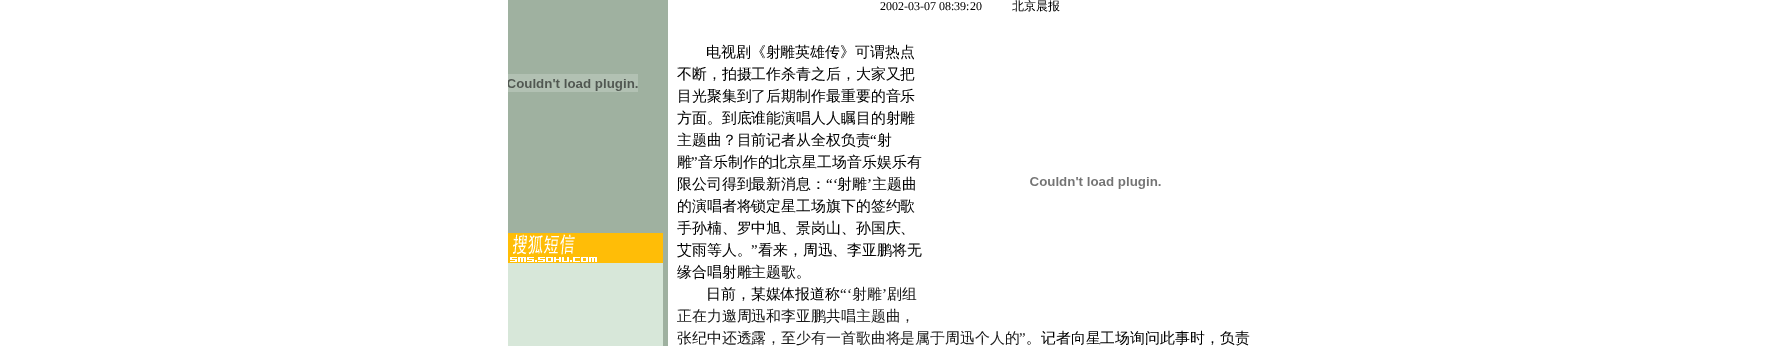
%!PS
<< /PageSize [1775 346] >> setpagedevice
/rgb { 3 { 255 div 3 1 roll } repeat setrgbcolor } def
/font { [ exch dup neg 0 0 3 -1 roll 0 0 ] selectfont } def
/text { moveto show } def
/picture { 5 dict begin { /h /w /y /x /name } { exch def } forall
  gsave x y translate w h scale
  w h 8 [w 0 0 h 0 0] name (r) file false 3 colorimage grestore end } def
0 346 translate 1 -1 scale
4 setmiterlimit
255 255 255 rgb
0 0 1775 346 rectfill
159 177 160 rgb
508 0 160 346 rectfill
(img_01.rgb) 508 74 130 18 picture
215 231 217 rgb
508 263 155 83 rectfill
(img_02.rgb) 508 233 155 30 picture
(img_03.rgb) 1030 177 131 12 picture
/LiberationSerif-Regular 12 font
0 0 0 rgb
(2002-03-07 08:39:20) 880 10 text
/WenQuanYiZenHei-Medium 12 font
(北京晨报) 1012 10 text
/WenQuanYiZenHei-Medium 14.9 font
(电视剧《射雕英雄传》可谓热点) 706 57 text
(不断，拍摄工作杀青之后，大家又把) 677 79 text
(目光聚集到了后期制作最重要的音乐) 677 101 text
(方面。到底谁能演唱人人瞩目的射雕) 677 123 text
(主题曲？目前记者从全权负责) 677 145 text
/LiberationSerif-Regular 14.9 font
(“) 870 145 text
/WenQuanYiZenHei-Medium 14.9 font
(射) 877 145 text
(雕) 677 167 text
/LiberationSerif-Regular 14.9 font
(”) 691 167 text
/WenQuanYiZenHei-Medium 14.9 font
(音乐制作的北京星工场音乐娱乐有) 698 167 text
(限公司得到最新消息：) 677 189 text
/LiberationSerif-Regular 14.9 font
(“‘) 826 189 text
/WenQuanYiZenHei-Medium 14.9 font
(射雕) 837 189 text
/LiberationSerif-Regular 14.9 font
(’) 867 189 text
/WenQuanYiZenHei-Medium 14.9 font
(主题曲) 872 189 text
(的演唱者将锁定星工场旗下的签约歌) 677 211 text
(手孙楠、罗中旭、景岗山、孙国庆、) 677 233 text
(艾雨等人。) 677 255 text
/LiberationSerif-Regular 14.9 font
(”) 751 255 text
/WenQuanYiZenHei-Medium 14.9 font
(看来，周迅、李亚鹏将无) 758 255 text
(缘合唱射雕主题歌。) 677 277 text
(日前，某媒体报道称) 706 299 text
/LiberationSerif-Regular 14.9 font
25 25 25 rgb
(“‘) 840 299 text
/WenQuanYiZenHei-Medium 14.9 font
(射雕) 852 299 text
/LiberationSerif-Regular 14.9 font
(’) 882 299 text
/WenQuanYiZenHei-Medium 14.9 font
(剧组) 887 299 text
(正在力邀周迅和李亚鹏共唱主题曲，) 677 321 text
(张纪中还透露，至少有一首歌曲将是属于周迅个人的) 677 343 text
/LiberationSerif-Regular 14.9 font
(”) 1019 343 text
/WenQuanYiZenHei-Medium 14.9 font
0 0 0 rgb
(。记者向星工场询问此事时，负责) 1026 343 text
showpage
